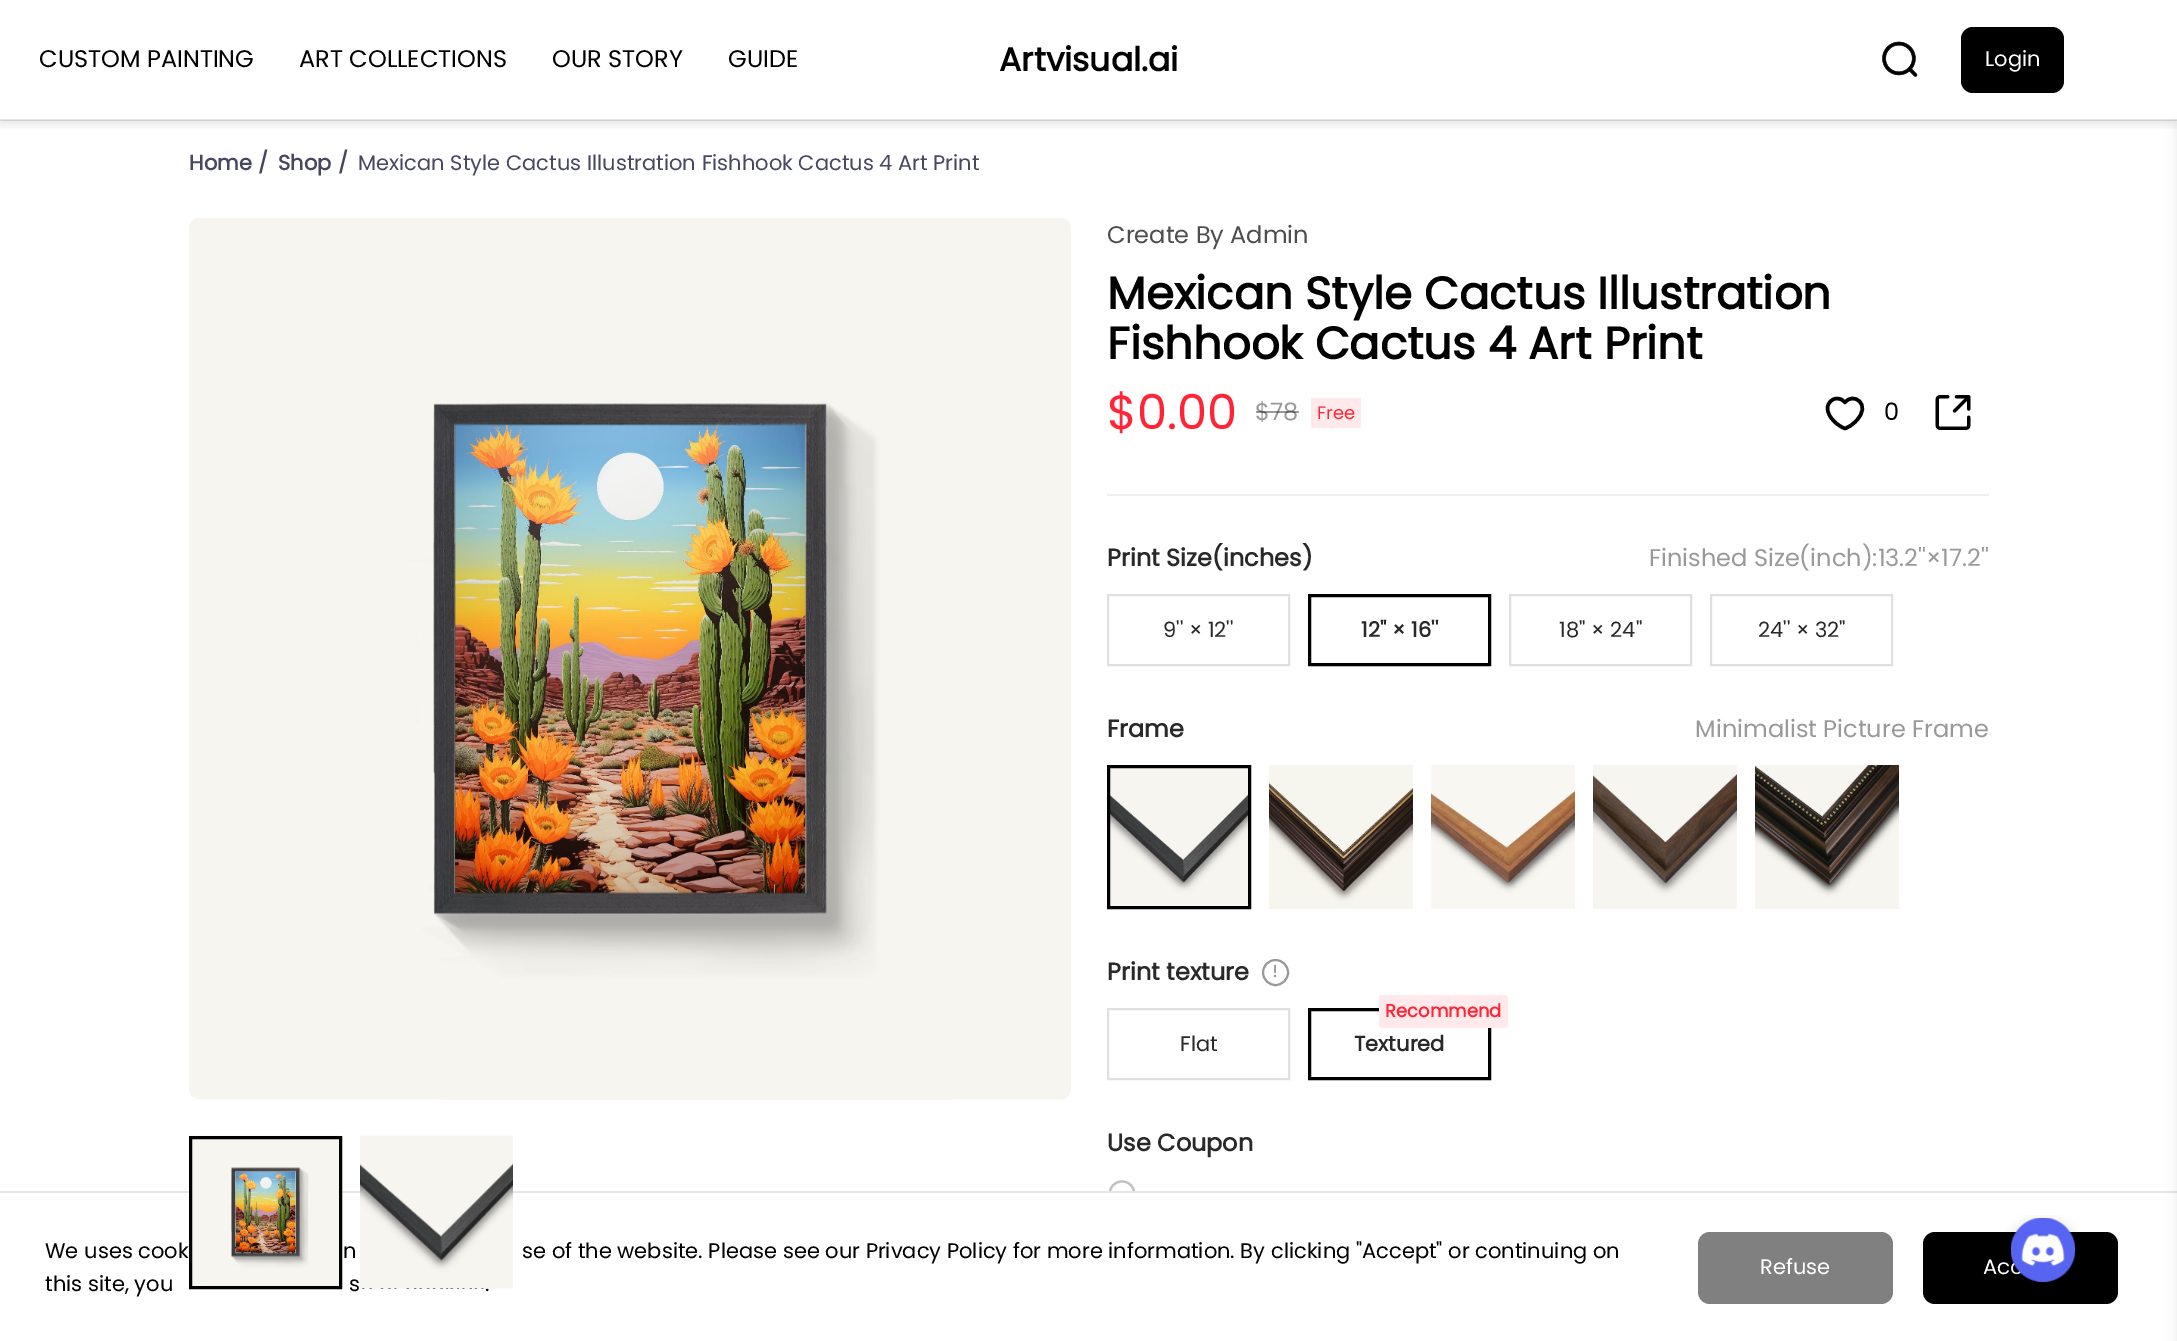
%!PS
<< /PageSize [2177 1341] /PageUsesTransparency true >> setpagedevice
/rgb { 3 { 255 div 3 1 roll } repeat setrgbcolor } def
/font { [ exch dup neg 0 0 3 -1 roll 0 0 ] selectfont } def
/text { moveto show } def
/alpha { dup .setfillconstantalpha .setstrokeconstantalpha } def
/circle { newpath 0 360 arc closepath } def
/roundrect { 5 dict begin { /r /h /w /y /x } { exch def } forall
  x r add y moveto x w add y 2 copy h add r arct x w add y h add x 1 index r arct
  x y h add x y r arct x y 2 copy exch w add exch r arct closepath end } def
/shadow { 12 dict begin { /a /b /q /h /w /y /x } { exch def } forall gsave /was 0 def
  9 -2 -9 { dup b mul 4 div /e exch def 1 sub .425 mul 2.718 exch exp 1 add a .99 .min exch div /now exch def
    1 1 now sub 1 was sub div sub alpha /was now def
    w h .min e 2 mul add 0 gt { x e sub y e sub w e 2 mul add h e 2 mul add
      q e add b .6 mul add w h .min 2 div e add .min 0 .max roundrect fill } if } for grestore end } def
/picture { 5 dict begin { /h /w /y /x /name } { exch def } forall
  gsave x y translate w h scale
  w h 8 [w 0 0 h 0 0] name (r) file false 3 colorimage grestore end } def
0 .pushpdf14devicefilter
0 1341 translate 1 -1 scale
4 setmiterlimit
255 255 255 rgb
0 0 2177 1341 rectfill
gsave
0 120 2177 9 rectclip
0 0 0 rgb
0 3 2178 120 0 6 0.12 shadow
grestore
0.1 alpha
0 0 0 rgb
0 119 2177 2 rectfill
1 alpha
(img_01.rgb) 1882 41 36 36 picture
1961 27 103 66 12 roundrect fill
(img_03.rgb) 455 423 351 471 picture
(img_02.rgb) 189 218 882 882 picture
194 194 194 rgb
2.2 setlinewidth
1 setlinejoin
1122 1206.5 moveto 16.5 0 16.5 -25 0 -25 rcurveto -16.5 0 -16.5 25 0 25 rcurveto closepath stroke
230 230 230 rgb
0 1191 2177 2 rectfill
(img_05.rgb) 235 1171 61 82 picture
(img_04.rgb) 189 1135 153 151 picture
0 0 0 rgb
3 setlinewidth
0 setlinejoin
190.5 1137.5 150 150 rectstroke
255 233 235 rgb
1311 398 50 30 rectfill
0 0 0 rgb
3.5 setlinewidth
1 setlinecap
1 setlinejoin
1837 398.5 moveto -5 0 -9.5 4.5 -9.5 9.5 rcurveto 0 10 11.5 18.5 17.5 20.5 rcurveto 4 -1.5 8 -4 11 -7.5 rcurveto 16.5 -16.5 -3 -29.5 -11 -18.5 rcurveto -2 -2.5 -4.5 -4 -8 -4 rcurveto closepath stroke
(img_07.rgb) 1935 395 36 35 picture
240 240 240 rgb
1107 494 882 2 rectfill
224 224 224 rgb
2 setlinewidth
0 setlinecap
0 setlinejoin
1108 595 181 70 rectstroke
0 0 0 rgb
3 setlinewidth
1309.5 595.5 180 69 rectstroke
224 224 224 rgb
2 setlinewidth
1510 595 181 70 rectstroke
1711 595 181 70 rectstroke
(img_08.rgb) 1110 768 138 138 picture
0 0 0 rgb
3 setlinewidth
1108.5 766.5 141 141 rectstroke
(img_09.rgb) 1269 765 144 144 picture
(img_10.rgb) 1431 765 144 144 picture
(img_11.rgb) 1593 765 144 144 picture
(img_12.rgb) 1755 765 144 144 picture
(img_13.rgb) 1273 964 4 14 picture
153 153 153 rgb
2 setlinewidth
1275.5 972.5 12.5 circle stroke
224 224 224 rgb
1108 1009 181 70 rectstroke
0 0 0 rgb
3 setlinewidth
1309.5 1009.5 180 69 rectstroke
255 233 235 rgb
1379 995 129 33 3 roundrect fill
0 0 0 rgb
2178 126 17 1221 0 6 0.1 shadow
255 255 255 rgb
1108 1193 28 15 rectfill
128 128 128 rgb
1698 1232 195 72 12 roundrect fill
0 0 0 rgb
1923 1232 195 72 12 roundrect fill
/Poppins-Regular 24 font
(CUSTOM PAINTING) 39 67 text
(ART COLLECTIONS) 299 67 text
(OUR STORY) 552 67 text
(GUIDE) 728 67 text
/Poppins-Bold 33 font
(Artvisual.ai) 999 71 text
/Poppins-Regular 21 font
255 255 255 rgb
(Login) 1985 66 text
/Poppins-Bold 21 font
71 71 98 rgb
(Home) 189 170 text
(/) 258 170 text
(Shop) 278 170 text
(/) 338 170 text
/Poppins-Regular 21 font
(Mexican Style Cactus Illustration Fishhook Cactus 4 Art Print) 358 170 text
/Poppins-Regular 24 font
77 77 77 rgb
(Create By Admin) 1107 243 text
/Poppins-Bold 45 font
0 0 0 rgb
(Mexican Style Cactus Illustration) 1107 309 text
(Fishhook Cactus 4 Art Print) 1107 359 text
/Poppins-Regular 48 font
255 36 54 rgb
($0.00) 1107 429 text
/Poppins-Regular 24 font
153 153 153 rgb
($78) 1255 420 text
0.4 alpha
0 0 0 rgb
1256 411 43 2 rectfill
/Poppins-Regular 18 font
1 alpha
255 36 54 rgb
(Free) 1317 419 text
/Poppins-Regular 24 font
0 0 0 rgb
(0) 1884 420 text
/Poppins-Bold 24 font
41 41 41 rgb
(Print Size\(inches\)) 1107 566 text
/Poppins-Regular 24 font
153 153 153 rgb
(Finished Size\(inch\):13.2''×17.2'') 1649 566 text
/Poppins-Regular 21 font
41 41 41 rgb
(9'' × 12'') 1163 637 text
/Poppins-Bold 21 font
(12'' × 16'') 1361 637 text
/Poppins-Regular 21 font
(18'' × 24'') 1559 637 text
(24'' × 32'') 1758 637 text
/Poppins-Bold 24 font
(Frame) 1107 737 text
/Poppins-Regular 24 font
153 153 153 rgb
(Minimalist Picture Frame) 1695 737 text
/Poppins-Bold 24 font
41 41 41 rgb
(Print texture) 1107 980 text
/Poppins-Regular 21 font
(Flat) 1180 1051 text
/Poppins-Bold 18 font
255 36 54 rgb
(Recommend) 1385 1017 text
/Poppins-Bold 21 font
41 41 41 rgb
(Textured) 1354 1051 text
/Poppins-Bold 24 font
(Use Coupon) 1107 1151 text
/Poppins-Regular 21 font
0 0 0 rgb
(We uses cook) 45 1258 text
(n) 343 1258 text
(se of the website. Please see our Privacy Policy for more information. By clicking "Accept" or continuing on) 522 1258 text
(this site, you) 45 1291 text
(s) 349 1291 text
(.) 485 1291 text
(img_06.rgb) 360 1135 153 154 picture
255 255 255 rgb
(Refuse) 1760 1274 text
(Acc) 1983 1274 text
(img_14.rgb) 2004 1215 73 67 picture
.poppdf14devicefilter showpage
